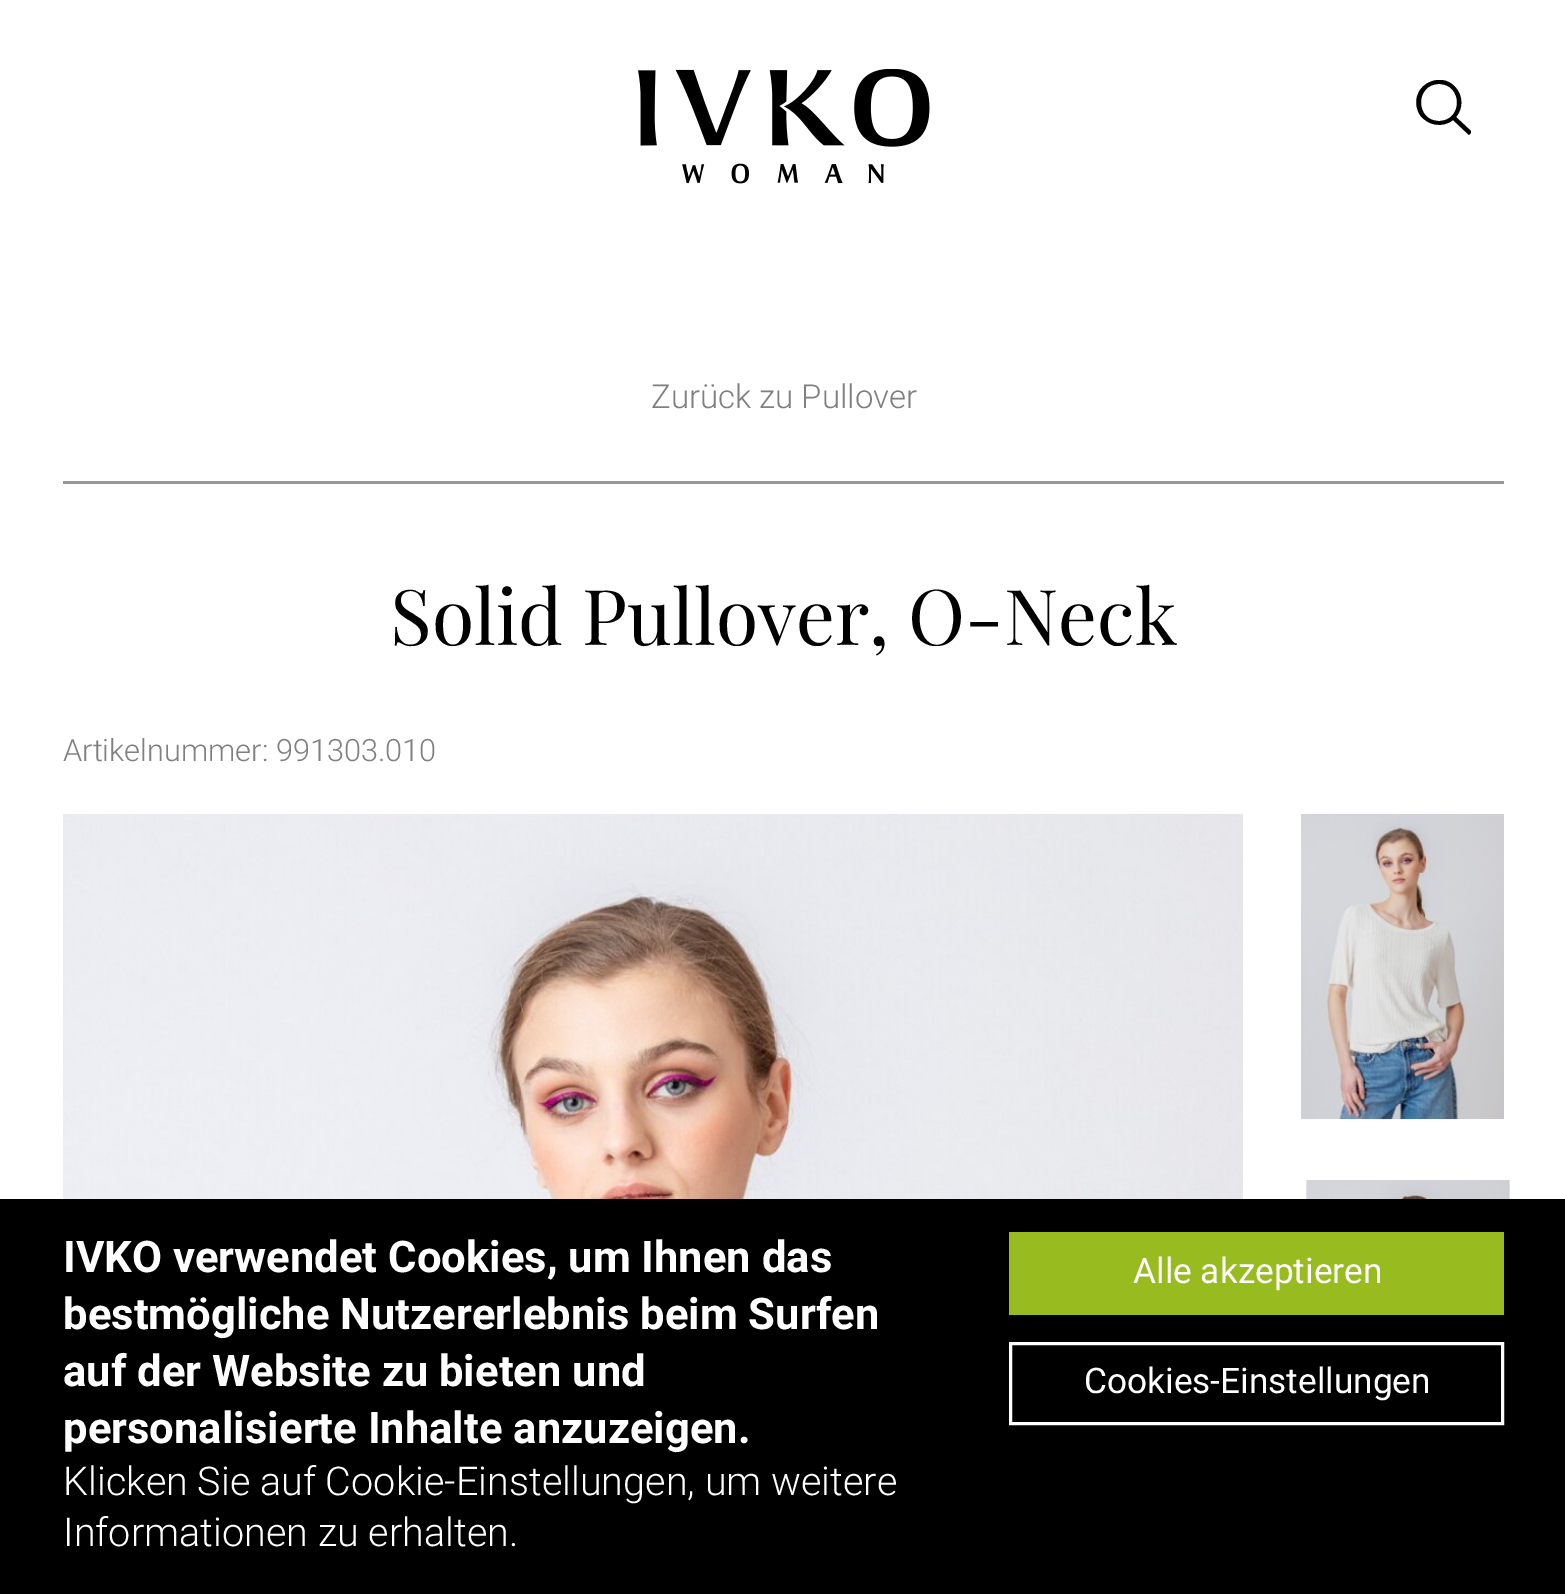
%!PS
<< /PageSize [1565 1594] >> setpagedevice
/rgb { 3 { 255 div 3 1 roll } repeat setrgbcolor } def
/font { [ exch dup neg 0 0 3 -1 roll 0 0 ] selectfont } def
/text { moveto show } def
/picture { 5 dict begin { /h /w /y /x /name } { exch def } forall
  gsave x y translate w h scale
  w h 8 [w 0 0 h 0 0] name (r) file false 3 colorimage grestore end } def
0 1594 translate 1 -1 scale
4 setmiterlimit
255 255 255 rgb
0 0 1565 1594 rectfill
242 242 242 rgb
1306 1180 204 19 rectfill
(img_01.rgb) 638 69 292 115 picture
gsave
1416 80 55 55 rectclip
0 0 0 rgb
1456 117 moveto 15 -18 -4 -45 -26 -35 rcurveto -5 2 -10 6 -12 12 rcurveto -3 6 -2 15 2 21 rcurveto 8 11 23 13 33 5 rcurveto 16 15 rlineto 3 -3 rlineto closepath 1439 121 moveto -24 0 -24 -37 0 -37 rcurveto 24 0 24 37 0 37 rcurveto closepath fill
grestore
153 153 153 rgb
63 481 1441 3 rectfill
(img_02.rgb) 63 814 1180 385 picture
(img_03.rgb) 1301 814 203 306 picture
(img_04.rgb) 1306 1180 204 19 picture
0 0 0 rgb
0 1199 1565 395 rectfill
152 187 31 rgb
1009 1232 495 83 rectfill
255 255 255 rgb
3 setlinewidth
1010.5 1343.5 492 80 rectstroke
/Roboto-Light 33 font
128 128 128 rgb
(Zurück zu Pullover) 651 408 text
/PlayfairDisplay-Regular 77 font
0 0 0 rgb
(Solid Pullover, O-Neck) 390 645 text
/Roboto-Light 30.75 font
128 128 128 rgb
(Artikelnummer: 991303.010) 63 761 text
/Roboto-Bold 43.6 font
255 255 255 rgb
(IVKO verwendet Cookies, um Ihnen das) 63 1272 text
(bestmögliche Nutzererlebnis beim Surfen) 63 1329 text
(auf der Website zu bieten und) 63 1386 text
(personalisierte Inhalte anzuzeigen.) 63 1443 text
/Roboto-Light 39.6 font
(Klicken Sie auf Cookie-Einstellungen, um weitere) 63 1495 text
(Informationen zu erhalten.) 63 1546 text
/Roboto-Regular 35.25 font
(Alle akzeptieren) 1133 1283 text
(Cookies-Einstellungen) 1084 1393 text
showpage
